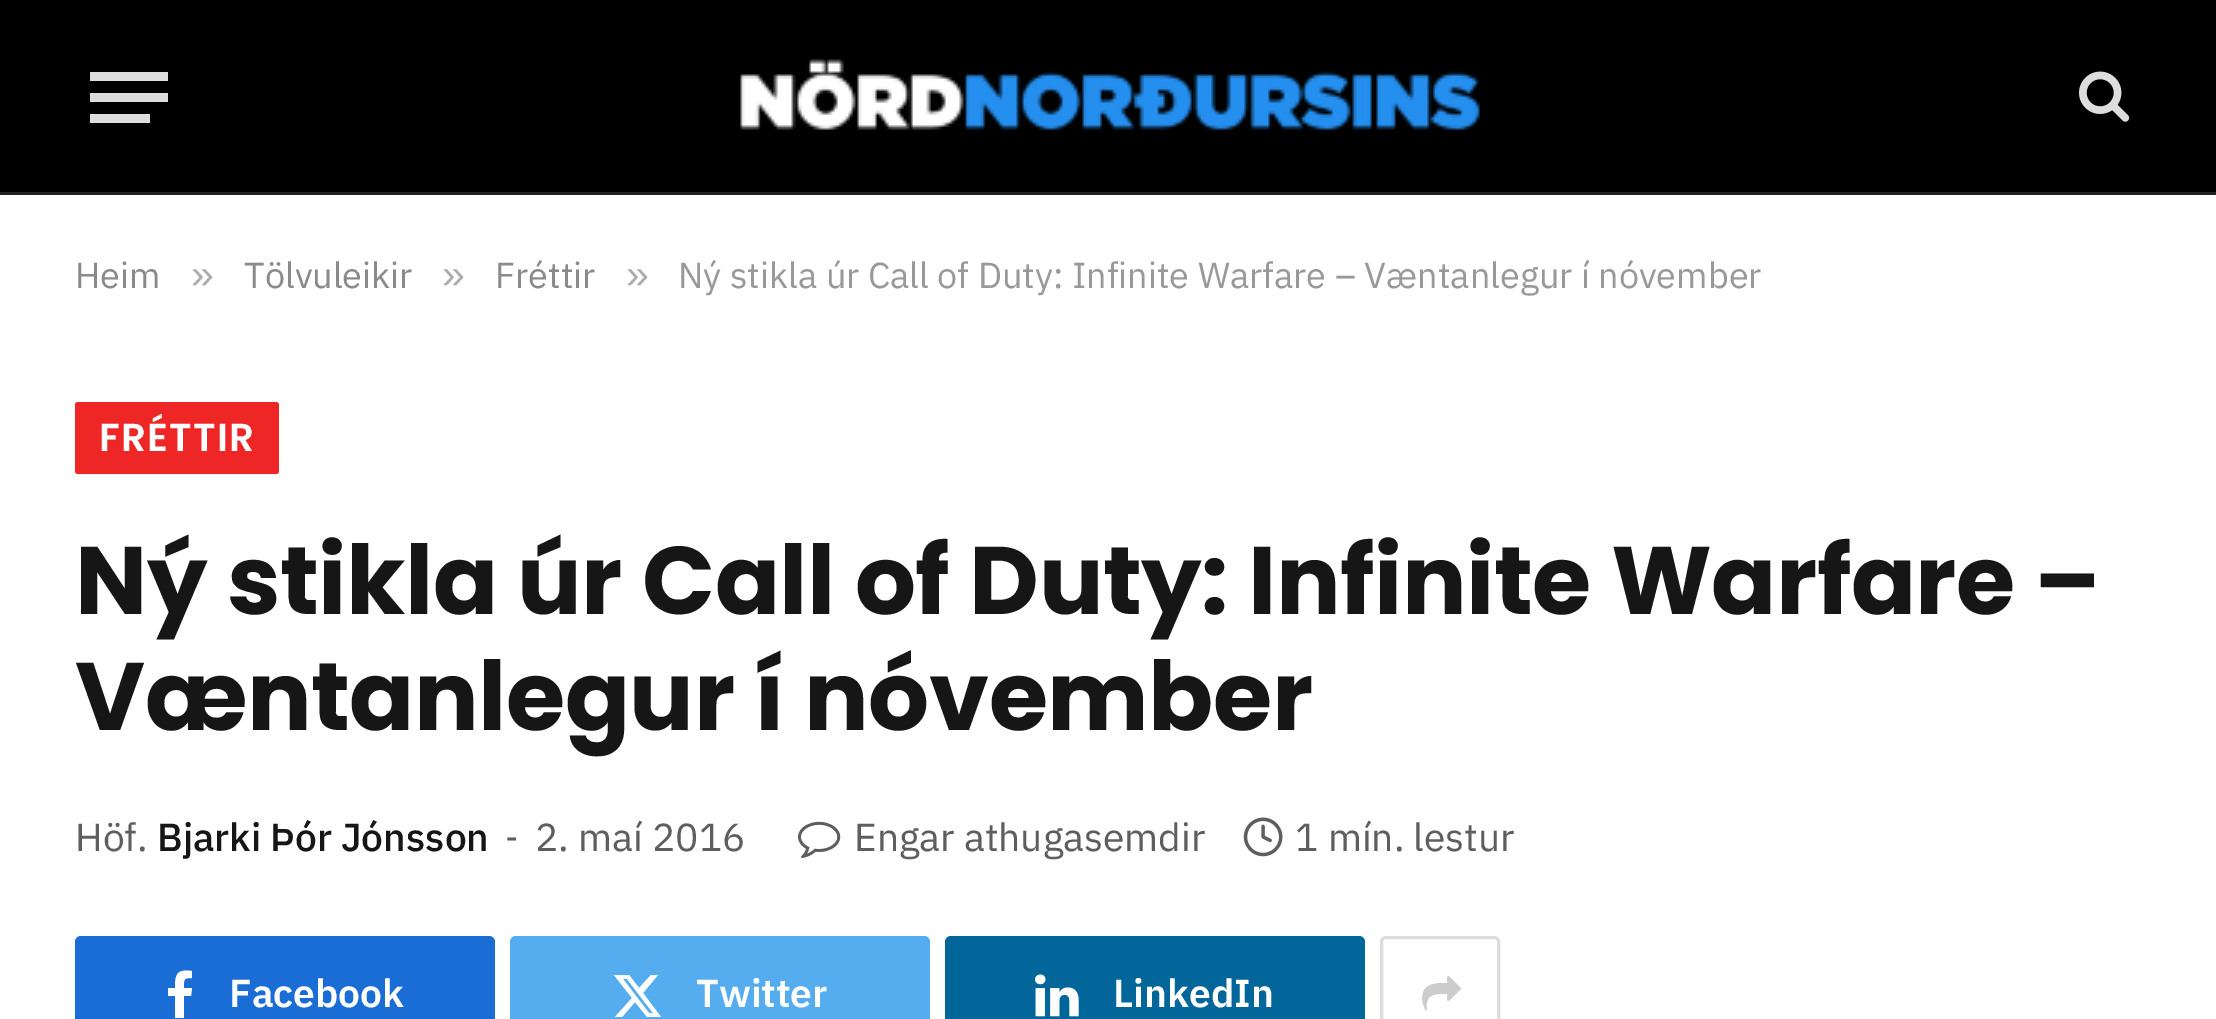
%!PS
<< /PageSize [2216 1019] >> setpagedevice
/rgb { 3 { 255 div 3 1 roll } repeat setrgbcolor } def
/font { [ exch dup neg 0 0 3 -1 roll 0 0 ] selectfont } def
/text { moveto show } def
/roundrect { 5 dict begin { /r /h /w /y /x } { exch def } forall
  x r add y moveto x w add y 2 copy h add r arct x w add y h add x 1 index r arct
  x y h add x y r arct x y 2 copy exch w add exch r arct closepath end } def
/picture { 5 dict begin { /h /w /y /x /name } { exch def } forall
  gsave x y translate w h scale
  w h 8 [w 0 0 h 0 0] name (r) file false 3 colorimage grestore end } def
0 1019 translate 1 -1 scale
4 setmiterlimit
255 255 255 rgb
0 0 2216 1019 rectfill
0 0 0 rgb
0 0 2216 192 rectfill
34 34 34 rgb
0 192 2216 3 rectfill
221 221 221 rgb
90 114 60 9 rectfill
90 72 78 9 rectfill
90 93 78 9 rectfill
(img_01.rgb) 740 59 740 71 picture
(img_02.rgb) 2079 71 51 51 picture
239 38 38 rgb
75 402 204 72 3 roundrect fill
(img_03.rgb) 798 821 43 37 picture
(img_04.rgb) 1243 817 40 40 picture
26 109 212 rgb
75 936 420 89 6 roundrect fill
255 255 255 rgb
192 971 moveto 0 7 rlineto -9 0 -8 1 -8 10 rcurveto 8 0 rlineto -1 8 rlineto -7 0 rlineto 0 22 rlineto -9 0 rlineto 0 -22 rlineto -7 0 rlineto 0 -8 rlineto 7 0 rlineto 0 -14 2 -19 17 -17 rcurveto closepath fill
85 172 239 rgb
510 936 420 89 6 roundrect fill
255 255 255 rgb
651 975 moveto 7 0 rlineto -15 18 rlineto 18 24 rlineto -14 0 rlineto -12 -15 rlineto -13 15 rlineto -7 0 rlineto 17 -19 rlineto -18 -23 rlineto 15 0 rlineto 10 13 rlineto closepath 649 1013 moveto 4 0 rlineto -26 -34 rlineto -4 0 rlineto closepath fill
2 102 154 rgb
945 936 420 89 6 roundrect fill
(img_05.rgb) 1035 974 44 43 picture
221 221 221 rgb
3 setlinewidth
1381.5 937.5 117 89 4.5 roundrect stroke
(img_06.rgb) 1422 976 39 35 picture
/IBMPlexSans-Regular 36 font
138 138 138 rgb
(Heim) 75 288 text
/LiberationSans-Regular 41 font
173 173 173 rgb
(») 191 288 text
/IBMPlexSans-Regular 36 font
138 138 138 rgb
(Tölvuleikir) 244 288 text
/LiberationSans-Regular 41 font
173 173 173 rgb
(») 442 288 text
/IBMPlexSans-Regular 36 font
138 138 138 rgb
(Fréttir) 495 288 text
/LiberationSans-Regular 41 font
173 173 173 rgb
(») 626 288 text
/IBMPlexSans-Regular 36 font
153 153 153 rgb
(Ný stikla úr Call of Duty: Infinite Warfare – Væntanlegur í nóvember) 678 288 text
/Poppins-SemiBold 39 font
255 255 255 rgb
99 451 moveto 1.25 0 (FRÉTTIR) ashow
/Poppins-Bold 96 font
22 22 22 rgb
75 614 moveto -0.5 0 (Ný stikla úr Call of Duty: Infinite Warfare –) ashow
75 730 moveto -0.5 0 (Væntanlegur í nóvember) ashow
/IBMPlexSans-Regular 39 font
94 94 94 rgb
(Höf.) 75 851 text
/IBMPlexSans-Medium 39 font
22 22 22 rgb
(Bjarki Þór Jónsson) 157 851 text
/IBMPlexSans-Regular 33 font
94 94 94 rgb
(-) 505 849 text
/IBMPlexSans-Regular 39 font
(2. maí 2016) 535 851 text
(Engar athugasemdir) 854 851 text
(1 mín. lestur) 1295 851 text
/IBMPlexSans-SemiBold 39 font
255 255 255 rgb
(Facebook) 229 1007 text
(Twitter) 696 1007 text
(LinkedIn) 1113 1007 text
showpage
